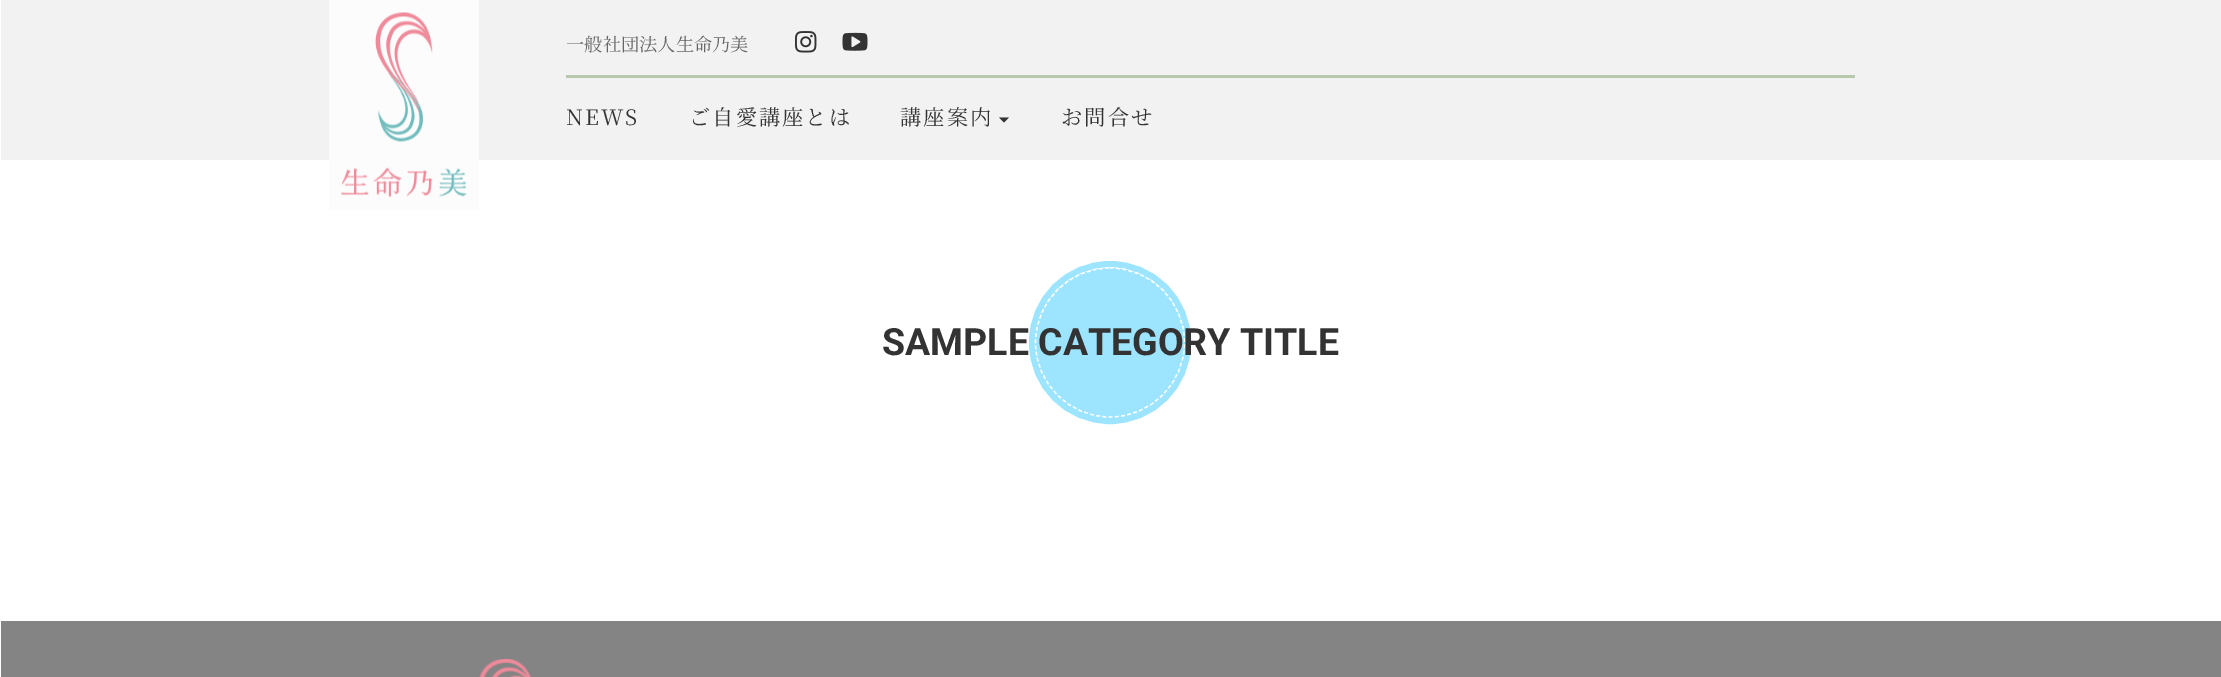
%!PS
<< /PageSize [2221 677] >> setpagedevice
/rgb { 3 { 255 div 3 1 roll } repeat setrgbcolor } def
/font { [ exch dup neg 0 0 3 -1 roll 0 0 ] selectfont } def
/text { moveto show } def
/circle { newpath 0 360 arc closepath } def
/roundrect { 5 dict begin { /r /h /w /y /x } { exch def } forall
  x r add y moveto x w add y 2 copy h add r arct x w add y h add x 1 index r arct
  x y h add x y r arct x y 2 copy exch w add exch r arct closepath end } def
/picture { 5 dict begin { /h /w /y /x /name } { exch def } forall
  gsave x y translate w h scale
  w h 8 [w 0 0 h 0 0] name (r) file false 3 colorimage grestore end } def
0 677 translate 1 -1 scale
4 setmiterlimit
255 255 255 rgb
0 0 2221 677 rectfill
242 242 242 rgb
1 0 2220 160 rectfill
252 252 252 rgb
329 0 150 210 rectfill
(img_01.rgb) 341 12 126 186 picture
(img_02.rgb) 795 31 22 22 picture
(img_03.rgb) 842 32 26 19 picture
183 200 173 rgb
566 75 1289 3 rectfill
51 51 51 rgb
999 117.5 moveto 10 0 rlineto -5 5 rlineto closepath fill
157 229 255 rgb
6 setlinewidth
1032 264 156 157 78 roundrect stroke
1110 343 75 circle fill
255 255 255 rgb
1.2 setlinewidth
[3.75 2.5] 0 setdash
1110 268 moveto 41 0 74.5 33.5 74.5 74.5 rcurveto 0 41 -33.5 74.5 -74.5 74.5 rcurveto -41 0 -74.5 -33.5 -74.5 -74.5 rcurveto 0 -41 33.5 -74.5 74.5 -74.5 rcurveto closepath stroke
132 132 132 rgb
1 621 2220 56 rectfill
(img_04.rgb) 479 659 53 18 picture
/NotoSerifJP-ExtraLight 18.25 font
102 102 102 rgb
(一般社団法人生命乃美) 566 51 text
/NotoSerifJP-ExtraLight 21.25 font
51 51 51 rgb
566 125 moveto 2 0 (NEWS) ashow
689 125 moveto 2 0 (ご自愛講座とは) ashow
900 125 moveto 2 0 (講座案内) ashow
1061 125 moveto 2 0 (お問合せ) ashow
/Roboto-Bold 37.5 font
(SAMPLE CATEGORY TITLE) 882 355 text
showpage
